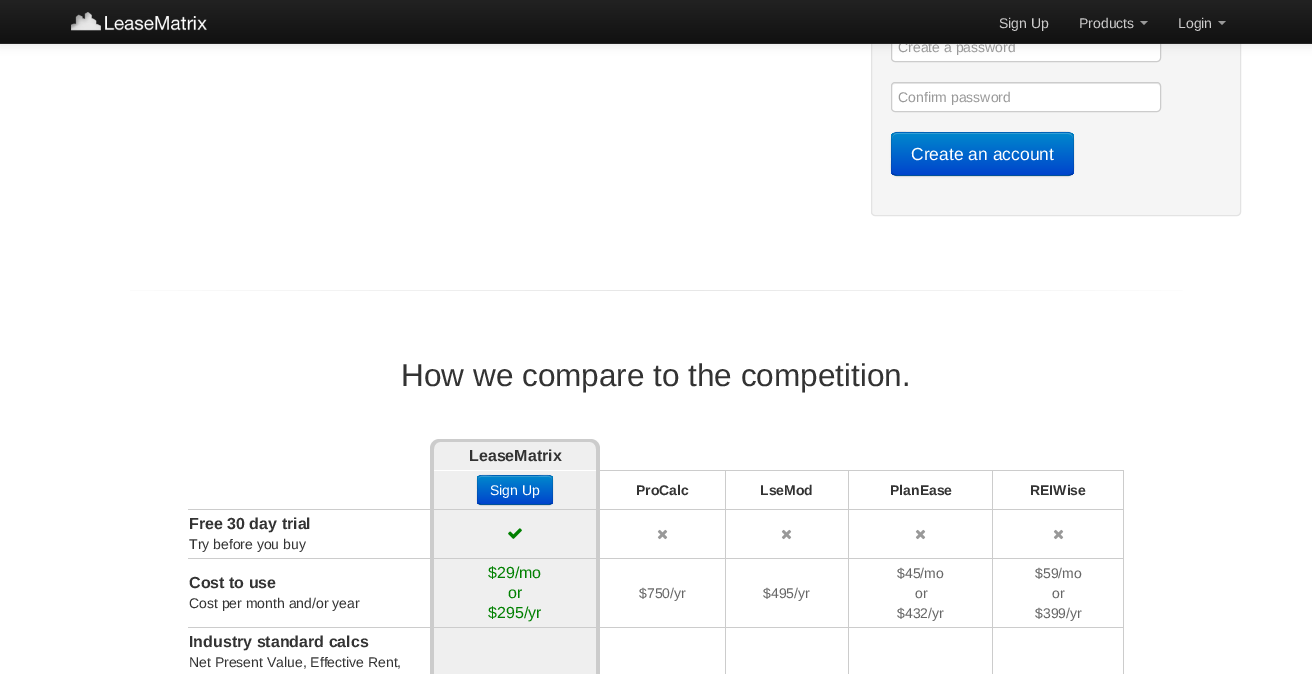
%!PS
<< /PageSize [1312 674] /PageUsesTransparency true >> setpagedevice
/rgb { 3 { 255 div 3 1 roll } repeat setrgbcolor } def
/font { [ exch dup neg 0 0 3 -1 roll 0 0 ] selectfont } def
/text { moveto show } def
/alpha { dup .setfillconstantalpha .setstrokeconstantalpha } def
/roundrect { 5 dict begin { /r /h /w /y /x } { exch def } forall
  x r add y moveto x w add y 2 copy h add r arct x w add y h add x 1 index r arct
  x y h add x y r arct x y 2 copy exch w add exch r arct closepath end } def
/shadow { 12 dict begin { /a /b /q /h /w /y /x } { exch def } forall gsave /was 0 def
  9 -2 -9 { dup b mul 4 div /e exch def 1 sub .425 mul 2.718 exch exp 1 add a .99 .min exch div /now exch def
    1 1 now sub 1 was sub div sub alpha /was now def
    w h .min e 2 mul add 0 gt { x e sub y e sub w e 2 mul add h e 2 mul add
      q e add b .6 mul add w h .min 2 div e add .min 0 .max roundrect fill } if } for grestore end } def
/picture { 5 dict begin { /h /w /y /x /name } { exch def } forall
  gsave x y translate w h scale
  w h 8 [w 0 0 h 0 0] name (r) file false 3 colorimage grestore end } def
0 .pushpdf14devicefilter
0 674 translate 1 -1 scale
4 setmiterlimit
255 255 255 rgb
0 0 1312 674 rectfill
245 245 245 rgb
871.5 -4.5 369 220 3.5 roundrect gsave fill grestore
227 227 227 rgb
stroke
255 255 255 rgb
891.5 32.5 269 29 3.5 roundrect gsave fill grestore
204 204 204 rgb
stroke
0 0 0 rgb
0 1 1312 44 0 5 0.1 shadow
255 255 255 rgb
891 82 270 30 4 roundrect fill
236 236 236 rgb
895 84 moveto 262 0 rlineto 2 0 3 1 3 3 rcurveto 0 -2 -1 -4 -3 -4 rcurveto -262 0 rlineto -2 0 -3 2 -3 4 rcurveto 0 -2 1 -3 3 -3 rcurveto closepath fill
204 204 204 rgb
891.5 82.5 269 29 3.5 roundrect stroke
0 0 0 rgb
891 133 183 44 6 1 0.05 shadow
0 109 204 rgb
891 132 183 44 6 roundrect fill
gsave
891 132 183 44 6 roundrect clip newpath
gsave 891 133 moveto 183 0 rlineto 0 42 rlineto -183 0 rlineto closepath clip newpath
<< /ShadingType 2 /ColorSpace /DeviceRGB /Coords [983 133 983 175] /Extend [true true] /Function << /FunctionType 2 /Domain [0 1] /C0 [0 0.533 0.8] /C1 [0 0.267 0.8] /N 1 >> >> shfill grestore
grestore
51 159 214 rgb
897 134 moveto 171 0 rlineto 3 0 5 2 5 5 rcurveto 0 -3 -1 -5 -4 -6 rcurveto -172 0 rlineto -3 0 -5 3 -5 6 rcurveto 0 -3 2 -5 5 -5 rcurveto closepath fill
0.25 alpha
0 0 0 rgb
1072 174 moveto -1 1 -2.5 1.5 -4 1.5 rcurveto -171 0 rlineto -1.5 0 -3 -0.5 -4 -1.5 rcurveto stroke
0.1 alpha
893 174 moveto -3 -3.5 -1.5 -11 -1.5 -14.5 rcurveto 0 -34 -4.5 -27 34 -27 rcurveto 114 0 rlineto 38.5 0 34 -7 34 27 rcurveto 0 3.5 1.5 11 -1.5 14.5 rcurveto stroke
1 alpha
gsave 130 290 moveto 1053 0 rlineto 0 1 rlineto -1053 0 rlineto closepath clip newpath
<< /ShadingType 2 /ColorSpace /DeviceRGB /Coords [71 291 1241 290] /Extend [true true] /Function << /FunctionType 3 /Domain [0 1] /Functions [<< /FunctionType 2 /Domain [0 1] /C0 [1 1 1] /C1 [0.902 0.902 0.902] /N 1 >> << /FunctionType 2 /Domain [0 1] /C0 [0.902 0.902 0.902] /C1 [1 1 1] /N 1 >>] /Bounds [0.5] /Encode [0 1 0 1] >> >> shfill grestore
239 239 239 rgb
440 439 moveto 150 0 rlineto 5.5 0 10 4.5 10 10 rcurveto 0 21 rlineto -170 0 rlineto 0 -21 rlineto 0 -5.5 4.5 -10 10 -10 rcurveto closepath fill
204 204 204 rgb
440 439 moveto 150 0 rlineto 6 0 10 4 10 10 rcurveto 0 21 rlineto -170 0 rlineto 0 -21 rlineto 0 -6 4 -10 10 -10 rcurveto closepath 440 442 moveto 150 0 rlineto 3 0 6 3 6 7 rcurveto 0 21 rlineto -162 0 rlineto 0 -21 rlineto 0 -4 3 -7 6 -7 rcurveto closepath eofill
239 239 239 rgb
434 471 162 38 rectfill
204 204 204 rgb
992 509 132 1 rectfill
992 558 132 1 rectfill
992 627 132 1 rectfill
992 627 1 47 rectfill
848 627 145 1 rectfill
992 558 1 70 rectfill
848 558 145 1 rectfill
992 509 1 50 rectfill
848 509 145 1 rectfill
848 627 1 47 rectfill
725 627 124 1 rectfill
848 558 1 70 rectfill
725 558 124 1 rectfill
848 509 1 50 rectfill
725 509 124 1 rectfill
725 627 1 47 rectfill
188 627 538 1 rectfill
725 558 1 70 rectfill
188 558 538 1 rectfill
725 509 1 50 rectfill
188 509 538 1 rectfill
0 0 0 rgb
477 476 76 30 4 1 0.05 shadow
0 109 204 rgb
477 475 76 30 4 roundrect fill
gsave
477 475 76 30 4 roundrect clip newpath
gsave 477 476 moveto 76 0 rlineto 0 28 rlineto -76 0 rlineto closepath clip newpath
<< /ShadingType 2 /ColorSpace /DeviceRGB /Coords [515 476 515 504] /Extend [true true] /Function << /FunctionType 2 /Domain [0 1] /C0 [0 0.533 0.8] /C1 [0 0.267 0.8] /N 1 >> >> shfill grestore
grestore
0.2 alpha
255 255 255 rgb
481 477 moveto 68 0 rlineto 2 0 3 1 3 3 rcurveto 0 -7 -10 -4 -14 -4 rcurveto -46 0 rlineto -4 0 -14 -3 -14 4 rcurveto 0 -2 1 -3 3 -3 rcurveto closepath fill
0.25 alpha
0 0 0 rgb
551.5 503.5 moveto -2 1 rlineto -69 0 rlineto -2 -1 rlineto stroke
0.1 alpha
478.5 503.5 moveto -2 -2 -1 -10.5 -1 -13.5 rcurveto 0 -16.5 -2.5 -14.5 15 -14.5 rcurveto 45 0 rlineto 17.5 0 15 -2 15 14.5 rcurveto 0 3 1 11.5 -1 13.5 rcurveto stroke
1 alpha
204 204 204 rgb
992 470 132 1 rectfill
992 470 1 40 rectfill
848 470 145 1 rectfill
848 470 1 40 rectfill
725 470 124 1 rectfill
725 470 1 40 rectfill
598 470 128 1 rectfill
1123 627 1 47 rectfill
1123 558 1 70 rectfill
1123 509 1 50 rectfill
1123 470 1 40 rectfill
(img_02.rgb) 657 529 11 11 picture
(img_02.rgb) 781 529 11 11 picture
(img_02.rgb) 915 529 11 11 picture
(img_02.rgb) 1053 529 11 11 picture
239 239 239 rgb
434 510 162 48 rectfill
(img_03.rgb) 508 528 14 11 picture
434 559 162 68 rectfill
434 628 162 46 rectfill
204 204 204 rgb
596 469 4 205 rectfill
430 469 4 205 rectfill
/LiberationSans-Regular 14 font
153 153 153 rgb
(Create a password) 898 52 text
gsave 0 0 moveto 1312 0 rlineto 0 43 rlineto -1312 0 rlineto closepath clip newpath
<< /ShadingType 2 /ColorSpace /DeviceRGB /Coords [656 0 656 43] /Extend [true true] /Function << /FunctionType 2 /Domain [0 1] /C0 [0.133 0.133 0.133] /C1 [0.067 0.067 0.067] /N 1 >> >> shfill grestore
1218 21 moveto 8 0 rlineto -4 4 rlineto closepath fill
205 204 204 rgb
(Login) 1178 28 text
153 153 153 rgb
1140 21 moveto 8 0 rlineto -4 4 rlineto closepath fill
205 204 204 rgb
(Products) 1079 28 text
(Sign Up) 999 28 text
(img_01.rgb) 71 12 136 19 picture
37 37 37 rgb
0 43 1312 1 rectfill
153 153 153 rgb
(Confirm password) 898 102 text
/LiberationSans-Regular 17.5 font
255 255 255 rgb
(Create an account) 911 160 text
/LiberationSans-Regular 31.5 font
51 51 51 rgb
(How we compare to the competition.) 401 386 text
/LiberationSans-Bold 16 font
(LeaseMatrix) 469 461 text
/LiberationSans-Regular 14 font
255 255 255 rgb
(Sign Up) 490 495 text
/LiberationSans-Bold 14 font
51 51 51 rgb
(ProCalc) 636 495 text
(LseMod) 760 495 text
(PlanEase) 890 495 text
(REIWise) 1030 495 text
/LiberationSans-Bold 16 font
(Free 30 day trial) 189 529 text
/LiberationSans-Regular 14 font
(Try before you buy) 189 549 text
/LiberationSans-Bold 16 font
(Cost to use) 189 588 text
/LiberationSans-Regular 14 font
(Cost per month and/or year) 189 608 text
/LiberationSans-Regular 16 font
0 128 0 rgb
($29/mo) 488 578 text
(or) 508 598 text
($295/yr) 488 618 text
/LiberationSans-Regular 14 font
102 102 102 rgb
($750/yr) 639 598 text
($495/yr) 763 598 text
($45/mo) 897 578 text
(or) 915 598 text
($432/yr) 897 618 text
($59/mo) 1035 578 text
(or) 1052 598 text
($399/yr) 1035 618 text
/LiberationSans-Bold 16 font
51 51 51 rgb
(Industry standard calcs) 189 647 text
/LiberationSans-Regular 14 font
(Net Present Value, Effective Rent,) 189 667 text
.poppdf14devicefilter showpage
